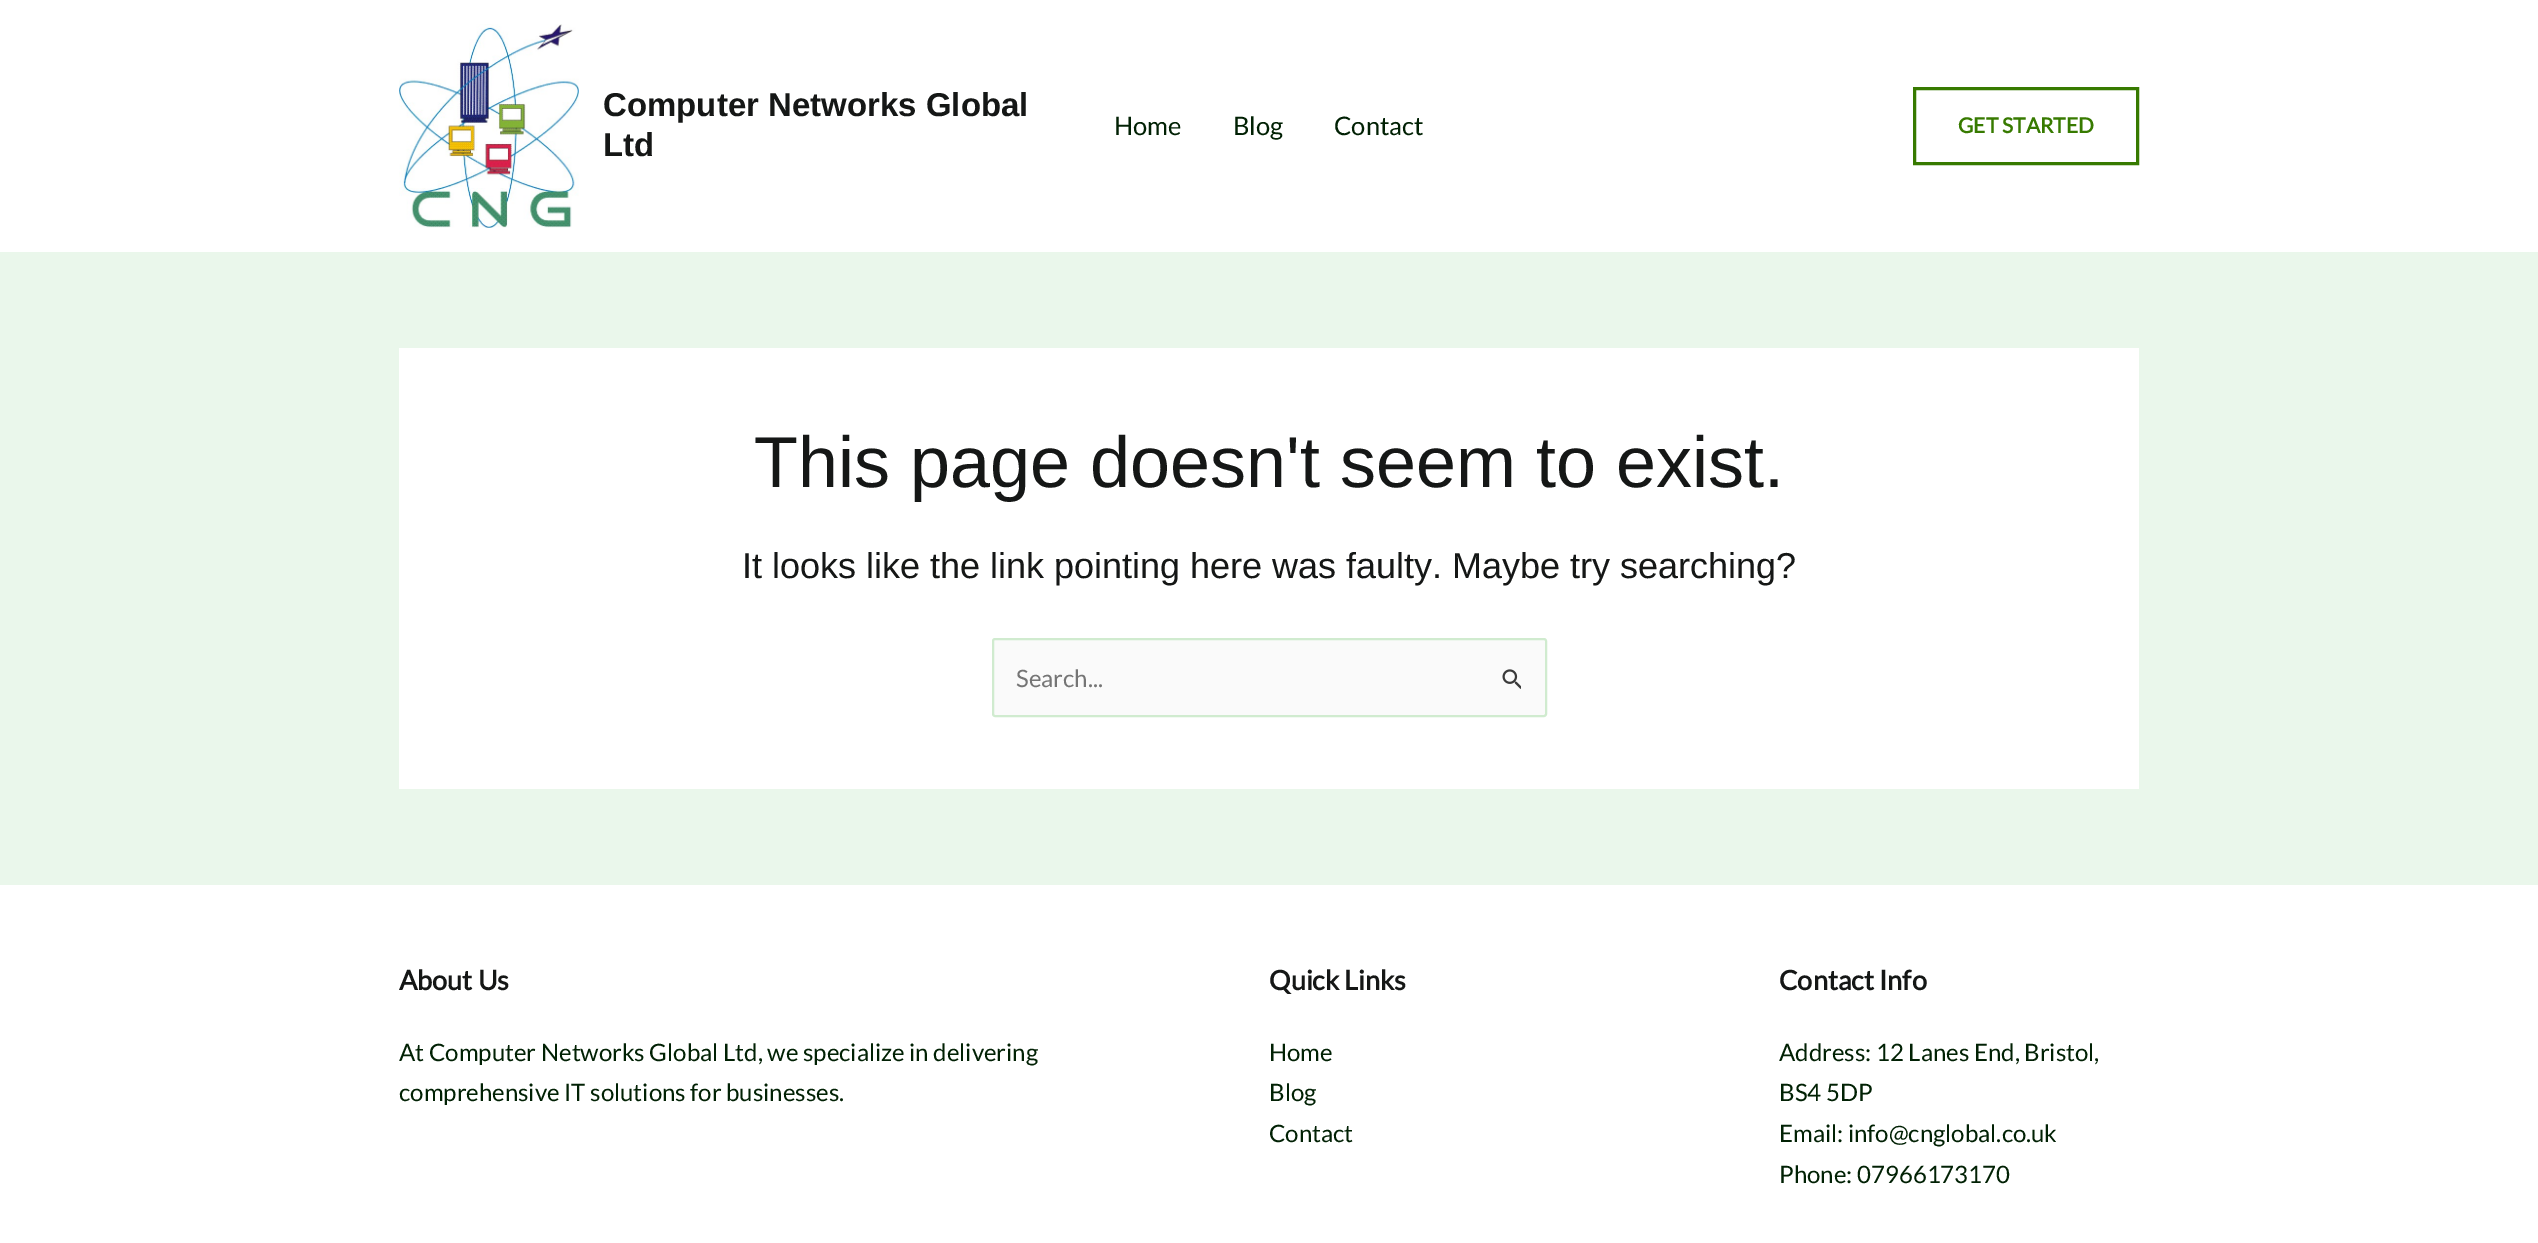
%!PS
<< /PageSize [2538 1243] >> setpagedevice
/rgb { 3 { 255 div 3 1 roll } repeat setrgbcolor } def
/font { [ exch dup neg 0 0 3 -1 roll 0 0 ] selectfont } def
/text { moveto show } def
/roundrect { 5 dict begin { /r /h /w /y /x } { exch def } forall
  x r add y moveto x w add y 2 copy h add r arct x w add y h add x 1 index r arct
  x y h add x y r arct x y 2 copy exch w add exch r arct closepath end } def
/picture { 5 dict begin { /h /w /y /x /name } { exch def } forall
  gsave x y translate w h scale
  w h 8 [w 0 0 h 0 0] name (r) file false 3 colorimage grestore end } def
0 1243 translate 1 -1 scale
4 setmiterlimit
234 247 235 rgb
0 0 2538 1243 rectfill
255 255 255 rgb
0 0 2538 252 rectfill
(img_01.rgb) 399 24 180 204 picture
55 122 0 rgb
3 setlinewidth
1914.5 88.5 223 75 rectstroke
255 255 255 rgb
399 348 1740 441 rectfill
250 250 250 rgb
993 639 553 77 2 roundrect gsave fill grestore
208 235 207 rgb
2 setlinewidth
stroke
(img_02.rgb) 1502 669 19 20 picture
255 255 255 rgb
0 885 2538 358 rectfill
/LiberationSans-Bold 33 font
21 23 22 rgb
(Computer Networks Global) 603 116 text
(Ltd) 603 156 text
/Lato-Regular 25.5 font
1 33 4 rgb
(Home) 1114 135 text
(Blog) 1233 135 text
(Contact) 1334 135 text
/Lato-Bold 21 font
55 122 0 rgb
(GET STARTED) 1958 133 text
/LiberationSans-Regular 72 font
21 23 22 rgb
(This page doesn't seem to exist.) 754 487 text
/LiberationSans-Regular 36 font
(It looks like the link pointing here was faulty. Maybe try searching?) 742 578 text
/Lato-Regular 24 font
117 117 117 rgb
(Search...) 1016 687 text
/Lato-Bold 27 font
21 23 22 rgb
(About Us) 399 990 text
/Lato-Regular 24 font
1 33 4 rgb
(At Computer Networks Global Ltd, we specialize in delivering) 399 1061 text
(comprehensive IT solutions for businesses.) 399 1101 text
/Lato-Bold 27 font
21 23 22 rgb
(Quick Links) 1269 990 text
/Lato-Regular 24 font
1 33 4 rgb
(Home) 1269 1061 text
(Blog) 1269 1101 text
(Contact) 1269 1142 text
/Lato-Bold 27 font
21 23 22 rgb
(Contact Info) 1779 990 text
/Lato-Regular 24 font
1 33 4 rgb
(Address: 12 Lanes End, Bristol,) 1779 1061 text
(BS4 5DP) 1779 1101 text
(Email: info@cnglobal.co.uk) 1779 1142 text
(Phone: 07966173170) 1779 1183 text
showpage
